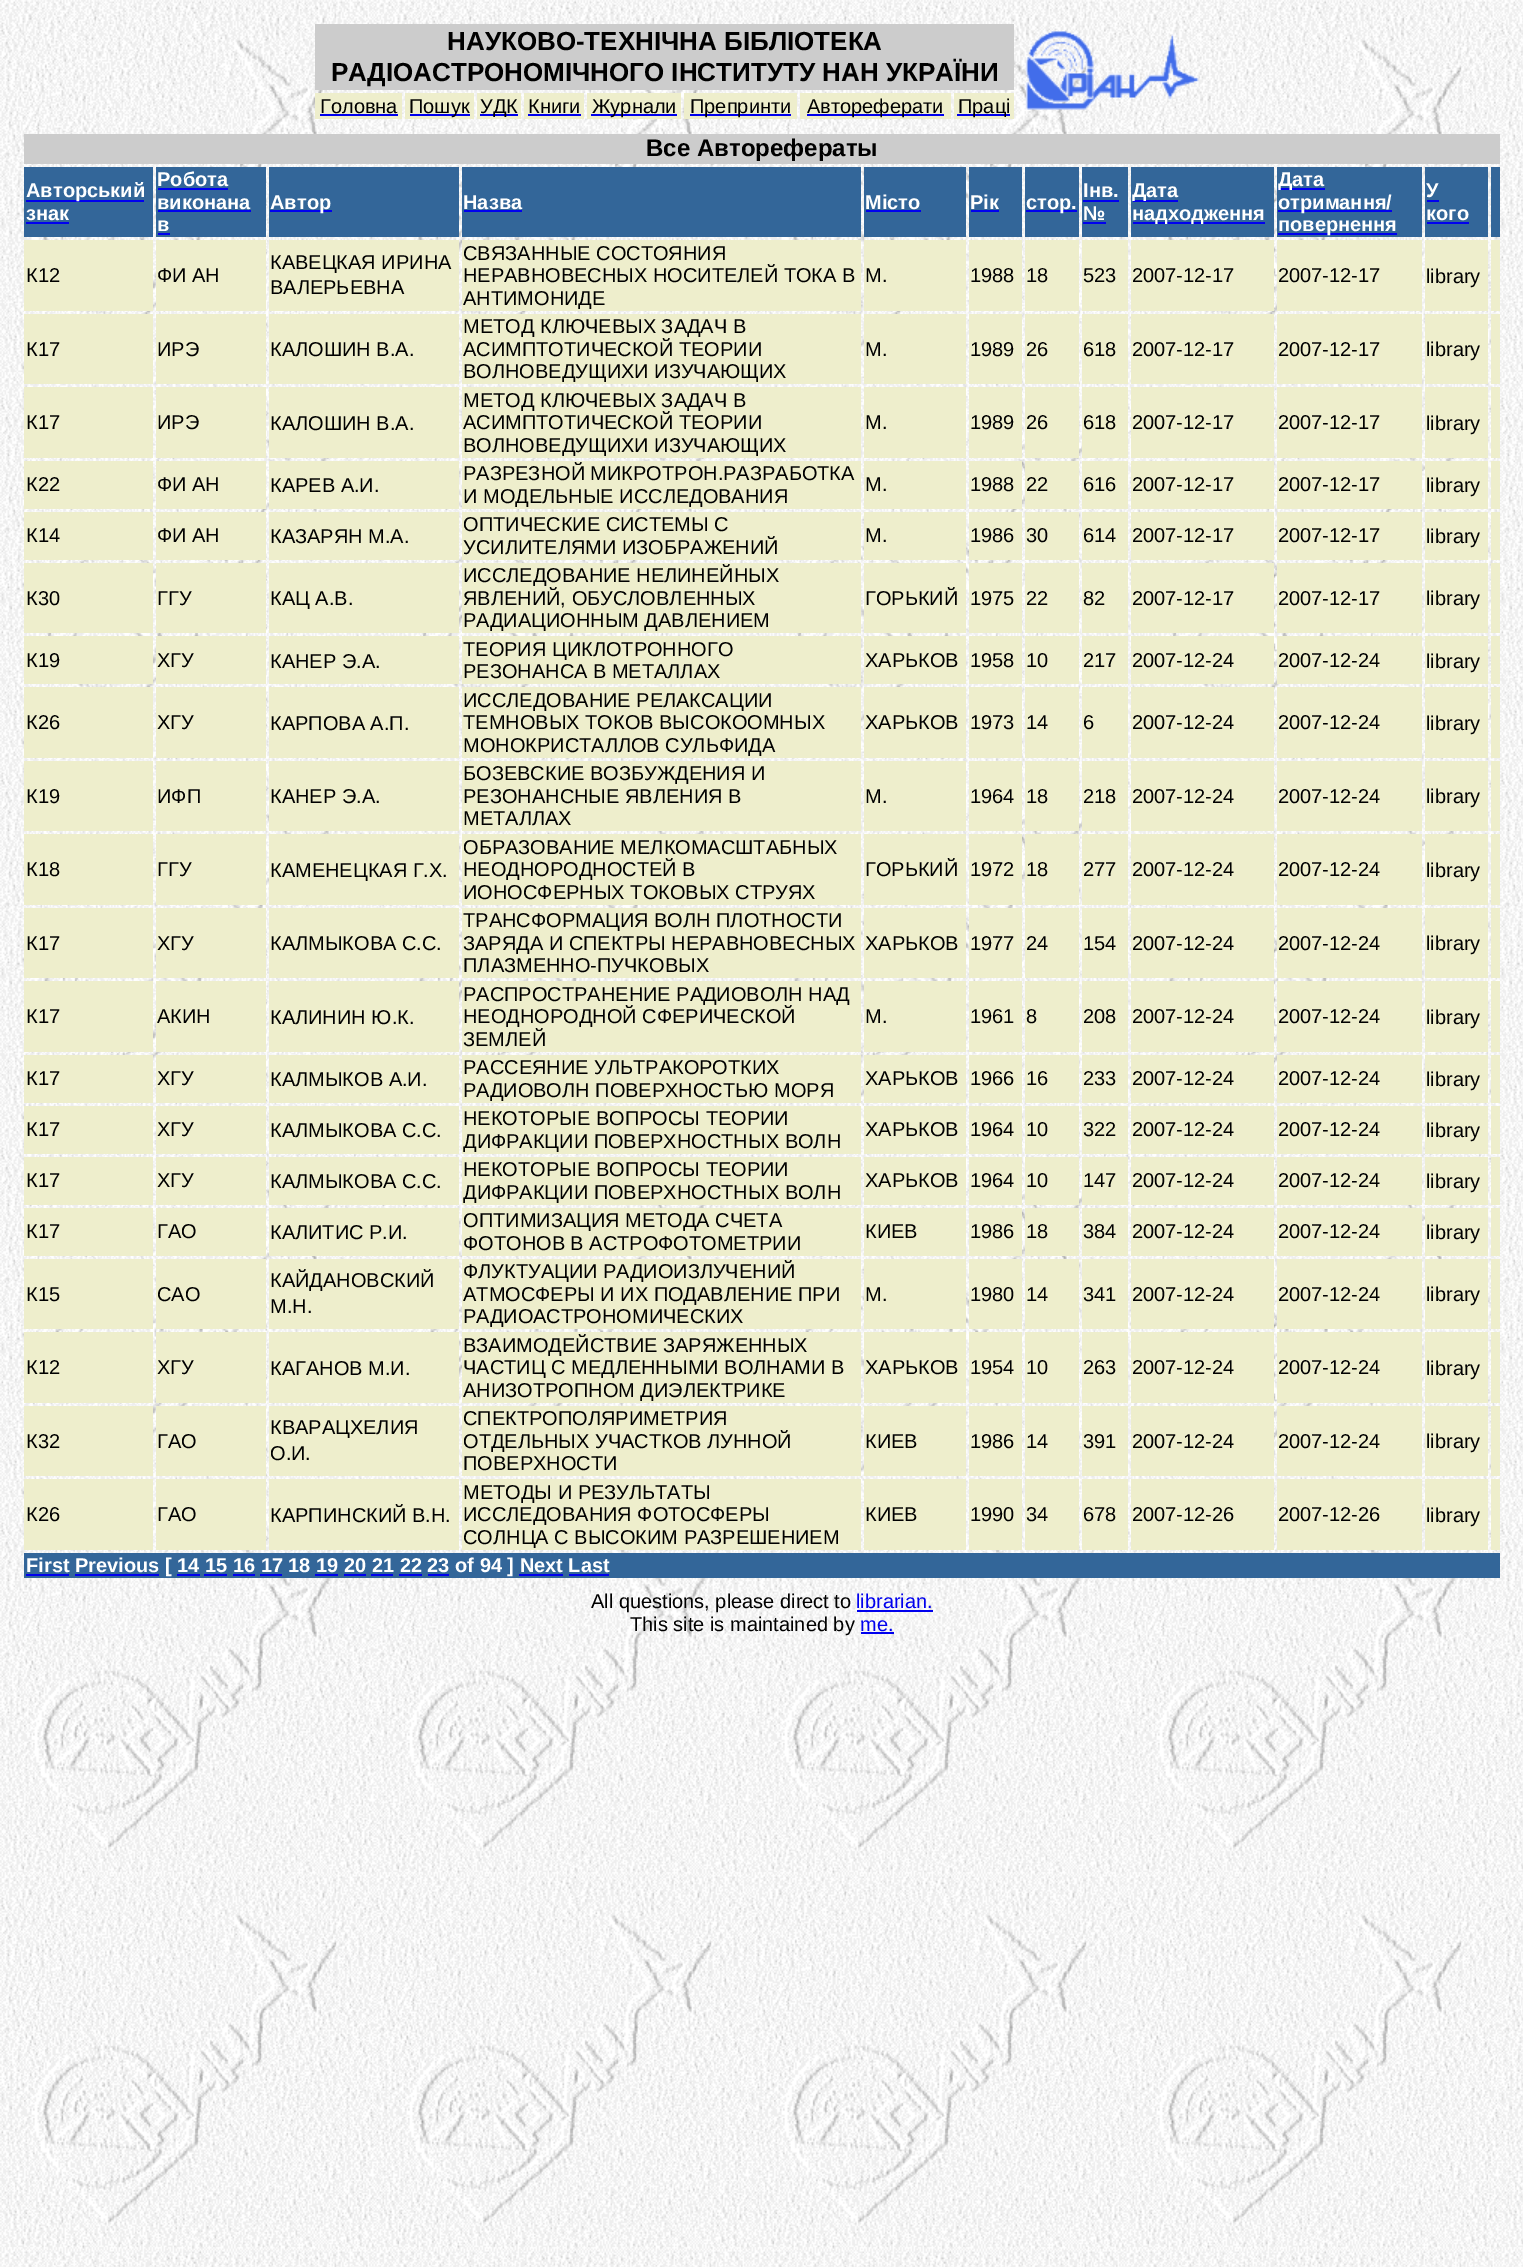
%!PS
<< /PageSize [1523 2267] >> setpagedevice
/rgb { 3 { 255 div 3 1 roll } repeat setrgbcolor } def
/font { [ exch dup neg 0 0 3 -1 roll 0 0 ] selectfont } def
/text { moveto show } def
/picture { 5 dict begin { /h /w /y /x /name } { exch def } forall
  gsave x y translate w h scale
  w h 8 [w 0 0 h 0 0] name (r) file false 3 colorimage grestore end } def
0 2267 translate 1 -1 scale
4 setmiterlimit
255 255 255 rgb
0 0 1523 2267 rectfill
(img_01.rgb) 0 0 1523 2267 picture
204 204 204 rgb
315 24 699 66 rectfill
(img_02.rgb) 1025 31 174 79 picture
238 238 204 rgb
315 93 87 26 rectfill
0 0 238 rgb
320 114 78 2 rectfill
238 238 204 rgb
405 93 69 26 rectfill
0 0 238 rgb
410 114 60 2 rectfill
238 238 204 rgb
477 93 44 26 rectfill
0 0 238 rgb
480 114 38 2 rectfill
238 238 204 rgb
524 93 60 26 rectfill
0 0 238 rgb
528 114 53 2 rectfill
238 238 204 rgb
587 93 94 26 rectfill
0 0 238 rgb
591 114 86 2 rectfill
238 238 204 rgb
684 93 113 26 rectfill
0 0 238 rgb
690 114 101 2 rectfill
238 238 204 rgb
800 93 151 26 rectfill
0 0 238 rgb
807 114 137 2 rectfill
238 238 204 rgb
954 93 60 26 rectfill
0 0 238 rgb
957 114 53 2 rectfill
204 204 204 rgb
24 134 1476 30 rectfill
51 102 153 rgb
24 167 129 70 rectfill
0 0 238 rgb
26 200 118 2 rectfill
26 222 43 2 rectfill
51 102 153 rgb
156 167 110 70 rectfill
0 0 238 rgb
158 188 70 2 rectfill
158 210 93 2 rectfill
158 233 12 2 rectfill
51 102 153 rgb
269 167 190 70 rectfill
0 0 238 rgb
270 210 62 2 rectfill
51 102 153 rgb
462 167 399 70 rectfill
0 0 238 rgb
464 210 58 2 rectfill
51 102 153 rgb
864 167 102 70 rectfill
0 0 238 rgb
866 210 55 2 rectfill
51 102 153 rgb
969 167 53 70 rectfill
0 0 238 rgb
971 210 28 2 rectfill
51 102 153 rgb
1025 167 54 70 rectfill
0 0 238 rgb
1026 210 51 2 rectfill
51 102 153 rgb
1082 167 46 70 rectfill
0 0 238 rgb
1083 200 36 2 rectfill
1083 222 23 2 rectfill
51 102 153 rgb
1131 167 143 70 rectfill
0 0 238 rgb
1133 200 45 2 rectfill
1133 222 132 2 rectfill
51 102 153 rgb
1277 167 145 70 rectfill
0 0 238 rgb
1278 188 47 2 rectfill
1278 210 114 2 rectfill
1278 233 119 2 rectfill
51 102 153 rgb
1425 167 63 70 rectfill
0 0 238 rgb
1427 200 12 2 rectfill
1427 222 42 2 rectfill
51 102 153 rgb
1491 167 9 70 rectfill
238 238 204 rgb
24 240 129 71 rectfill
156 240 110 71 rectfill
269 240 190 71 rectfill
462 240 399 71 rectfill
864 240 102 71 rectfill
969 240 53 71 rectfill
1025 240 54 71 rectfill
1082 240 46 71 rectfill
1131 240 143 71 rectfill
1277 240 145 71 rectfill
1425 240 63 71 rectfill
1491 240 9 71 rectfill
24 314 129 70 rectfill
156 314 110 70 rectfill
269 314 190 70 rectfill
462 314 399 70 rectfill
864 314 102 70 rectfill
969 314 53 70 rectfill
1025 314 54 70 rectfill
1082 314 46 70 rectfill
1131 314 143 70 rectfill
1277 314 145 70 rectfill
1425 314 63 70 rectfill
1491 314 9 70 rectfill
24 387 129 71 rectfill
156 387 110 71 rectfill
269 387 190 71 rectfill
462 387 399 71 rectfill
864 387 102 71 rectfill
969 387 53 71 rectfill
1025 387 54 71 rectfill
1082 387 46 71 rectfill
1131 387 143 71 rectfill
1277 387 145 71 rectfill
1425 387 63 71 rectfill
1491 387 9 71 rectfill
24 461 129 48 rectfill
156 461 110 48 rectfill
269 461 190 48 rectfill
462 461 399 48 rectfill
864 461 102 48 rectfill
969 461 53 48 rectfill
1025 461 54 48 rectfill
1082 461 46 48 rectfill
1131 461 143 48 rectfill
1277 461 145 48 rectfill
1425 461 63 48 rectfill
1491 461 9 48 rectfill
24 512 129 48 rectfill
156 512 110 48 rectfill
269 512 190 48 rectfill
462 512 399 48 rectfill
864 512 102 48 rectfill
969 512 53 48 rectfill
1025 512 54 48 rectfill
1082 512 46 48 rectfill
1131 512 143 48 rectfill
1277 512 145 48 rectfill
1425 512 63 48 rectfill
1491 512 9 48 rectfill
24 563 129 70 rectfill
156 563 110 70 rectfill
269 563 190 70 rectfill
462 563 399 70 rectfill
864 563 102 70 rectfill
969 563 53 70 rectfill
1025 563 54 70 rectfill
1082 563 46 70 rectfill
1131 563 143 70 rectfill
1277 563 145 70 rectfill
1425 563 63 70 rectfill
1491 563 9 70 rectfill
24 636 129 48 rectfill
156 636 110 48 rectfill
269 636 190 48 rectfill
462 636 399 48 rectfill
864 636 102 48 rectfill
969 636 53 48 rectfill
1025 636 54 48 rectfill
1082 636 46 48 rectfill
1131 636 143 48 rectfill
1277 636 145 48 rectfill
1425 636 63 48 rectfill
1491 636 9 48 rectfill
24 687 129 71 rectfill
156 687 110 71 rectfill
269 687 190 71 rectfill
462 687 399 71 rectfill
864 687 102 71 rectfill
969 687 53 71 rectfill
1025 687 54 71 rectfill
1082 687 46 71 rectfill
1131 687 143 71 rectfill
1277 687 145 71 rectfill
1425 687 63 71 rectfill
1491 687 9 71 rectfill
24 761 129 70 rectfill
156 761 110 70 rectfill
269 761 190 70 rectfill
462 761 399 70 rectfill
864 761 102 70 rectfill
969 761 53 70 rectfill
1025 761 54 70 rectfill
1082 761 46 70 rectfill
1131 761 143 70 rectfill
1277 761 145 70 rectfill
1425 761 63 70 rectfill
1491 761 9 70 rectfill
24 834 129 71 rectfill
156 834 110 71 rectfill
269 834 190 71 rectfill
462 834 399 71 rectfill
864 834 102 71 rectfill
969 834 53 71 rectfill
1025 834 54 71 rectfill
1082 834 46 71 rectfill
1131 834 143 71 rectfill
1277 834 145 71 rectfill
1425 834 63 71 rectfill
1491 834 9 71 rectfill
24 908 129 70 rectfill
156 908 110 70 rectfill
269 908 190 70 rectfill
462 908 399 70 rectfill
864 908 102 70 rectfill
969 908 53 70 rectfill
1025 908 54 70 rectfill
1082 908 46 70 rectfill
1131 908 143 70 rectfill
1277 908 145 70 rectfill
1425 908 63 70 rectfill
1491 908 9 70 rectfill
24 981 129 71 rectfill
156 981 110 71 rectfill
269 981 190 71 rectfill
462 981 399 71 rectfill
864 981 102 71 rectfill
969 981 53 71 rectfill
1025 981 54 71 rectfill
1082 981 46 71 rectfill
1131 981 143 71 rectfill
1277 981 145 71 rectfill
1425 981 63 71 rectfill
1491 981 9 71 rectfill
24 1055 129 48 rectfill
156 1055 110 48 rectfill
269 1055 190 48 rectfill
462 1055 399 48 rectfill
864 1055 102 48 rectfill
969 1055 53 48 rectfill
1025 1055 54 48 rectfill
1082 1055 46 48 rectfill
1131 1055 143 48 rectfill
1277 1055 145 48 rectfill
1425 1055 63 48 rectfill
1491 1055 9 48 rectfill
24 1106 129 48 rectfill
156 1106 110 48 rectfill
269 1106 190 48 rectfill
462 1106 399 48 rectfill
864 1106 102 48 rectfill
969 1106 53 48 rectfill
1025 1106 54 48 rectfill
1082 1106 46 48 rectfill
1131 1106 143 48 rectfill
1277 1106 145 48 rectfill
1425 1106 63 48 rectfill
1491 1106 9 48 rectfill
24 1157 129 48 rectfill
156 1157 110 48 rectfill
269 1157 190 48 rectfill
462 1157 399 48 rectfill
864 1157 102 48 rectfill
969 1157 53 48 rectfill
1025 1157 54 48 rectfill
1082 1157 46 48 rectfill
1131 1157 143 48 rectfill
1277 1157 145 48 rectfill
1425 1157 63 48 rectfill
1491 1157 9 48 rectfill
24 1208 129 48 rectfill
156 1208 110 48 rectfill
269 1208 190 48 rectfill
462 1208 399 48 rectfill
864 1208 102 48 rectfill
969 1208 53 48 rectfill
1025 1208 54 48 rectfill
1082 1208 46 48 rectfill
1131 1208 143 48 rectfill
1277 1208 145 48 rectfill
1425 1208 63 48 rectfill
1491 1208 9 48 rectfill
24 1259 129 70 rectfill
156 1259 110 70 rectfill
269 1259 190 70 rectfill
462 1259 399 70 rectfill
864 1259 102 70 rectfill
969 1259 53 70 rectfill
1025 1259 54 70 rectfill
1082 1259 46 70 rectfill
1131 1259 143 70 rectfill
1277 1259 145 70 rectfill
1425 1259 63 70 rectfill
1491 1259 9 70 rectfill
24 1332 129 71 rectfill
156 1332 110 71 rectfill
269 1332 190 71 rectfill
462 1332 399 71 rectfill
864 1332 102 71 rectfill
969 1332 53 71 rectfill
1025 1332 54 71 rectfill
1082 1332 46 71 rectfill
1131 1332 143 71 rectfill
1277 1332 145 71 rectfill
1425 1332 63 71 rectfill
1491 1332 9 71 rectfill
24 1406 129 70 rectfill
156 1406 110 70 rectfill
269 1406 190 70 rectfill
462 1406 399 70 rectfill
864 1406 102 70 rectfill
969 1406 53 70 rectfill
1025 1406 54 70 rectfill
1082 1406 46 70 rectfill
1131 1406 143 70 rectfill
1277 1406 145 70 rectfill
1425 1406 63 70 rectfill
1491 1406 9 70 rectfill
24 1479 129 71 rectfill
156 1479 110 71 rectfill
269 1479 190 71 rectfill
462 1479 399 71 rectfill
864 1479 102 71 rectfill
969 1479 53 71 rectfill
1025 1479 54 71 rectfill
1082 1479 46 71 rectfill
1131 1479 143 71 rectfill
1277 1479 145 71 rectfill
1425 1479 63 71 rectfill
1491 1479 9 71 rectfill
51 102 153 rgb
24 1553 1476 25 rectfill
0 0 238 rgb
26 1574 43 2 rectfill
857 1610 76 2 rectfill
861 1632 33 2 rectfill
/LiberationSans-Bold 26 font
0 0 0 rgb
(НАУКОВО-ТЕХНІЧНА БІБЛІОТЕКА) 447 50 text
(РАДІОАСТРОНОМІЧНОГО ІНСТИТУТУ НАН УКРАЇНИ) 331 81 text
/LiberationSans-Regular 20 font
(Головна) 320 113 text
(Пошук) 409 113 text
(УДК) 480 113 text
(Книги) 528 113 text
(Журнали) 592 113 text
(Препринти) 690 113 text
(Автореферати) 807 113 text
(Праці) 958 113 text
/LiberationSans-Bold 24 font
(Все Авторефераты) 646 156 text
/LiberationSans-Bold 20 font
255 255 255 rgb
(Авторський) 26 197 text
(знак) 26 220 text
(Робота) 157 186 text
(виконана) 157 209 text
(в) 157 231 text
(Автор) 270 209 text
(Назва) 463 209 text
(Місто) 865 209 text
(Рік) 970 209 text
(стор.) 1026 209 text
(Інв.) 1083 197 text
(№) 1083 220 text
(Дата) 1132 197 text
(надходження) 1132 220 text
(Дата) 1278 186 text
(отримання/) 1278 209 text
(повернення) 1278 231 text
(У) 1426 197 text
(кого) 1426 220 text
/LiberationSans-Regular 20 font
0 0 0 rgb
(К12) 26 282 text
(ФИ АН) 157 282 text
(КАВЕЦКАЯ ИРИНА) 270 269 text
(ВАЛЕРЬЕВНА) 270 294 text
(СВЯЗАННЫЕ СОСТОЯНИЯ) 463 260 text
(НЕРАВНОВЕСНЫХ НОСИТЕЛЕЙ ТОКА В) 463 282 text
(АНТИМОНИДЕ) 463 305 text
(М.) 865 282 text
(1988) 970 282 text
(18) 1026 282 text
(523) 1083 282 text
(2007-12-17) 1132 282 text
(2007-12-17) 1278 282 text
(library) 1426 283 text
(К17) 26 356 text
(ИРЭ) 157 356 text
(КАЛОШИН В.А.) 270 356 text
(МЕТОД КЛЮЧЕВЫХ ЗАДАЧ В) 463 333 text
(АСИМПТОТИЧЕСКОЙ ТЕОРИИ) 463 356 text
(ВОЛНОВЕДУЩИХИ ИЗУЧАЮЩИХ) 463 378 text
(М.) 865 356 text
(1989) 970 356 text
(26) 1026 356 text
(618) 1083 356 text
(2007-12-17) 1132 356 text
(2007-12-17) 1278 356 text
(library) 1426 356 text
(К17) 26 429 text
(ИРЭ) 157 429 text
(КАЛОШИН В.А.) 270 430 text
(МЕТОД КЛЮЧЕВЫХ ЗАДАЧ В) 463 407 text
(АСИМПТОТИЧЕСКОЙ ТЕОРИИ) 463 429 text
(ВОЛНОВЕДУЩИХИ ИЗУЧАЮЩИХ) 463 452 text
(М.) 865 429 text
(1989) 970 429 text
(26) 1026 429 text
(618) 1083 429 text
(2007-12-17) 1132 429 text
(2007-12-17) 1278 429 text
(library) 1426 430 text
(К22) 26 491 text
(ФИ АН) 157 491 text
(КАРЕВ А.И.) 270 492 text
(РАЗРЕЗНОЙ МИКРОТРОН.РАЗРАБОТКА) 463 480 text
(И МОДЕЛЬНЫЕ ИССЛЕДОВАНИЯ) 463 503 text
(М.) 865 491 text
(1988) 970 491 text
(22) 1026 491 text
(616) 1083 491 text
(2007-12-17) 1132 491 text
(2007-12-17) 1278 491 text
(library) 1426 492 text
(К14) 26 542 text
(ФИ АН) 157 542 text
(КАЗАРЯН М.А.) 270 543 text
(ОПТИЧЕСКИЕ СИСТЕМЫ С) 463 531 text
(УСИЛИТЕЛЯМИ ИЗОБРАЖЕНИЙ) 463 554 text
(М.) 865 542 text
(1986) 970 542 text
(30) 1026 542 text
(614) 1083 542 text
(2007-12-17) 1132 542 text
(2007-12-17) 1278 542 text
(library) 1426 543 text
(К30) 26 605 text
(ГГУ) 157 605 text
(КАЦ А.В.) 270 605 text
(ИССЛЕДОВАНИЕ НЕЛИНЕЙНЫХ) 463 582 text
(ЯВЛЕНИЙ, ОБУСЛОВЛЕННЫХ) 463 605 text
(РАДИАЦИОННЫМ ДАВЛЕНИЕМ) 463 627 text
(ГОРЬКИЙ) 865 605 text
(1975) 970 605 text
(22) 1026 605 text
(82) 1083 605 text
(2007-12-17) 1132 605 text
(2007-12-17) 1278 605 text
(library) 1426 605 text
(К19) 26 667 text
(ХГУ) 157 667 text
(КАНЕР Э.А.) 270 668 text
(ТЕОРИЯ ЦИКЛОТРОННОГО) 463 656 text
(РЕЗОНАНСА В МЕТАЛЛАХ) 463 678 text
(ХАРЬКОВ) 865 667 text
(1958) 970 667 text
(10) 1026 667 text
(217) 1083 667 text
(2007-12-24) 1132 667 text
(2007-12-24) 1278 667 text
(library) 1426 668 text
(К26) 26 729 text
(ХГУ) 157 729 text
(КАРПОВА А.П.) 270 730 text
(ИССЛЕДОВАНИЕ РЕЛАКСАЦИИ) 463 707 text
(ТЕМНОВЫХ ТОКОВ ВЫСОКООМНЫХ) 463 729 text
(МОНОКРИСТАЛЛОВ СУЛЬФИДА) 463 752 text
(ХАРЬКОВ) 865 729 text
(1973) 970 729 text
(14) 1026 729 text
(6) 1083 729 text
(2007-12-24) 1132 729 text
(2007-12-24) 1278 729 text
(library) 1426 730 text
(К19) 26 803 text
(ИФП) 157 803 text
(КАНЕР Э.А.) 270 803 text
(БОЗЕВСКИЕ ВОЗБУЖДЕНИЯ И) 463 780 text
(РЕЗОНАНСНЫЕ ЯВЛЕНИЯ В) 463 803 text
(МЕТАЛЛАХ) 463 825 text
(М.) 865 803 text
(1964) 970 803 text
(18) 1026 803 text
(218) 1083 803 text
(2007-12-24) 1132 803 text
(2007-12-24) 1278 803 text
(library) 1426 803 text
(К18) 26 876 text
(ГГУ) 157 876 text
(КАМЕНЕЦКАЯ Г.Х.) 270 877 text
(ОБРАЗОВАНИЕ МЕЛКОМАСШТАБНЫХ) 463 854 text
(НЕОДНОРОДНОСТЕЙ В) 463 876 text
(ИОНОСФЕРНЫХ ТОКОВЫХ СТРУЯХ) 463 899 text
(ГОРЬКИЙ) 865 876 text
(1972) 970 876 text
(18) 1026 876 text
(277) 1083 876 text
(2007-12-24) 1132 876 text
(2007-12-24) 1278 876 text
(library) 1426 877 text
(К17) 26 950 text
(ХГУ) 157 950 text
(КАЛМЫКОВА С.С.) 270 950 text
(ТРАНСФОРМАЦИЯ ВОЛН ПЛОТНОСТИ) 463 927 text
(ЗАРЯДА И СПЕКТРЫ НЕРАВНОВЕСНЫХ) 463 950 text
(ПЛАЗМЕННО-ПУЧКОВЫХ) 463 972 text
(ХАРЬКОВ) 865 950 text
(1977) 970 950 text
(24) 1026 950 text
(154) 1083 950 text
(2007-12-24) 1132 950 text
(2007-12-24) 1278 950 text
(library) 1426 950 text
(К17) 26 1023 text
(АКИН) 157 1023 text
(КАЛИНИН Ю.К.) 270 1024 text
(РАСПРОСТРАНЕНИЕ РАДИОВОЛН НАД) 463 1001 text
(НЕОДНОРОДНОЙ СФЕРИЧЕСКОЙ) 463 1023 text
(ЗЕМЛЕЙ) 463 1046 text
(М.) 865 1023 text
(1961) 970 1023 text
(8) 1026 1023 text
(208) 1083 1023 text
(2007-12-24) 1132 1023 text
(2007-12-24) 1278 1023 text
(library) 1426 1024 text
(К17) 26 1085 text
(ХГУ) 157 1085 text
(КАЛМЫКОВ А.И.) 270 1086 text
(РАССЕЯНИЕ УЛЬТРАКОРОТКИХ) 463 1074 text
(РАДИОВОЛН ПОВЕРХНОСТЬЮ МОРЯ) 463 1097 text
(ХАРЬКОВ) 865 1085 text
(1966) 970 1085 text
(16) 1026 1085 text
(233) 1083 1085 text
(2007-12-24) 1132 1085 text
(2007-12-24) 1278 1085 text
(library) 1426 1086 text
(К17) 26 1136 text
(ХГУ) 157 1136 text
(КАЛМЫКОВА С.С.) 270 1137 text
(НЕКОТОРЫЕ ВОПРОСЫ ТЕОРИИ) 463 1125 text
(ДИФРАКЦИИ ПОВЕРХНОСТНЫХ ВОЛН) 463 1148 text
(ХАРЬКОВ) 865 1136 text
(1964) 970 1136 text
(10) 1026 1136 text
(322) 1083 1136 text
(2007-12-24) 1132 1136 text
(2007-12-24) 1278 1136 text
(library) 1426 1137 text
(К17) 26 1187 text
(ХГУ) 157 1187 text
(КАЛМЫКОВА С.С.) 270 1188 text
(НЕКОТОРЫЕ ВОПРОСЫ ТЕОРИИ) 463 1176 text
(ДИФРАКЦИИ ПОВЕРХНОСТНЫХ ВОЛН) 463 1199 text
(ХАРЬКОВ) 865 1187 text
(1964) 970 1187 text
(10) 1026 1187 text
(147) 1083 1187 text
(2007-12-24) 1132 1187 text
(2007-12-24) 1278 1187 text
(library) 1426 1188 text
(К17) 26 1238 text
(ГАО) 157 1238 text
(КАЛИТИС Р.И.) 270 1239 text
(ОПТИМИЗАЦИЯ МЕТОДА СЧЕТА) 463 1227 text
(ФОТОНОВ В АСТРОФОТОМЕТРИИ) 463 1250 text
(КИЕВ) 865 1238 text
(1986) 970 1238 text
(18) 1026 1238 text
(384) 1083 1238 text
(2007-12-24) 1132 1238 text
(2007-12-24) 1278 1238 text
(library) 1426 1239 text
(К15) 26 1301 text
(САО) 157 1301 text
(КАЙДАНОВСКИЙ) 270 1287 text
(М.Н.) 270 1313 text
(ФЛУКТУАЦИИ РАДИОИЗЛУЧЕНИЙ) 463 1278 text
(АТМОСФЕРЫ И ИХ ПОДАВЛЕНИЕ ПРИ) 463 1301 text
(РАДИОАСТРОНОМИЧЕСКИХ) 463 1323 text
(М.) 865 1301 text
(1980) 970 1301 text
(14) 1026 1301 text
(341) 1083 1301 text
(2007-12-24) 1132 1301 text
(2007-12-24) 1278 1301 text
(library) 1426 1301 text
(К12) 26 1374 text
(ХГУ) 157 1374 text
(КАГАНОВ М.И.) 270 1375 text
(ВЗАИМОДЕЙСТВИЕ ЗАРЯЖЕННЫХ) 463 1352 text
(ЧАСТИЦ С МЕДЛЕННЫМИ ВОЛНАМИ В) 463 1374 text
(АНИЗОТРОПНОМ ДИЭЛЕКТРИКЕ) 463 1397 text
(ХАРЬКОВ) 865 1374 text
(1954) 970 1374 text
(10) 1026 1374 text
(263) 1083 1374 text
(2007-12-24) 1132 1374 text
(2007-12-24) 1278 1374 text
(library) 1426 1375 text
(К32) 26 1448 text
(ГАО) 157 1448 text
(КВАРАЦХЕЛИЯ) 270 1434 text
(О.И.) 270 1460 text
(СПЕКТРОПОЛЯРИМЕТРИЯ) 463 1425 text
(ОТДЕЛЬНЫХ УЧАСТКОВ ЛУННОЙ) 463 1448 text
(ПОВЕРХНОСТИ) 463 1470 text
(КИЕВ) 865 1448 text
(1986) 970 1448 text
(14) 1026 1448 text
(391) 1083 1448 text
(2007-12-24) 1132 1448 text
(2007-12-24) 1278 1448 text
(library) 1426 1448 text
(К26) 26 1521 text
(ГАО) 157 1521 text
(КАРПИНСКИЙ В.Н.) 270 1522 text
(МЕТОДЫ И РЕЗУЛЬТАТЫ) 463 1499 text
(ИССЛЕДОВАНИЯ ФОТОСФЕРЫ) 463 1521 text
(СОЛНЦА С ВЫСОКИМ РАЗРЕШЕНИЕМ) 463 1544 text
(КИЕВ) 865 1521 text
(1990) 970 1521 text
(34) 1026 1521 text
(678) 1083 1521 text
(2007-12-26) 1132 1521 text
(2007-12-26) 1278 1521 text
(library) 1426 1522 text
/LiberationSans-Bold 20 font
255 255 255 rgb
(First Previous [ 14 15 16 17 18 19 20 21 22 23 of 94 ] Next Last) 26 1572 text
0 0 238 rgb
75 1574 84 2 rectfill
177 1574 23 2 rectfill
204 1574 23 2 rectfill
233 1574 22 2 rectfill
260 1574 22 2 rectfill
315 1574 23 2 rectfill
344 1574 22 2 rectfill
371 1574 22 2 rectfill
399 1574 23 2 rectfill
428 1574 21 2 rectfill
519 1574 44 2 rectfill
569 1574 40 2 rectfill
/LiberationSans-Regular 20 font
0 0 0 rgb
(All questions, please direct to) 591 1608 text
0 0 238 rgb
(librarian.) 856 1608 text
0 0 0 rgb
(This site is maintained by) 630 1631 text
0 0 238 rgb
(me.) 860 1631 text
showpage
